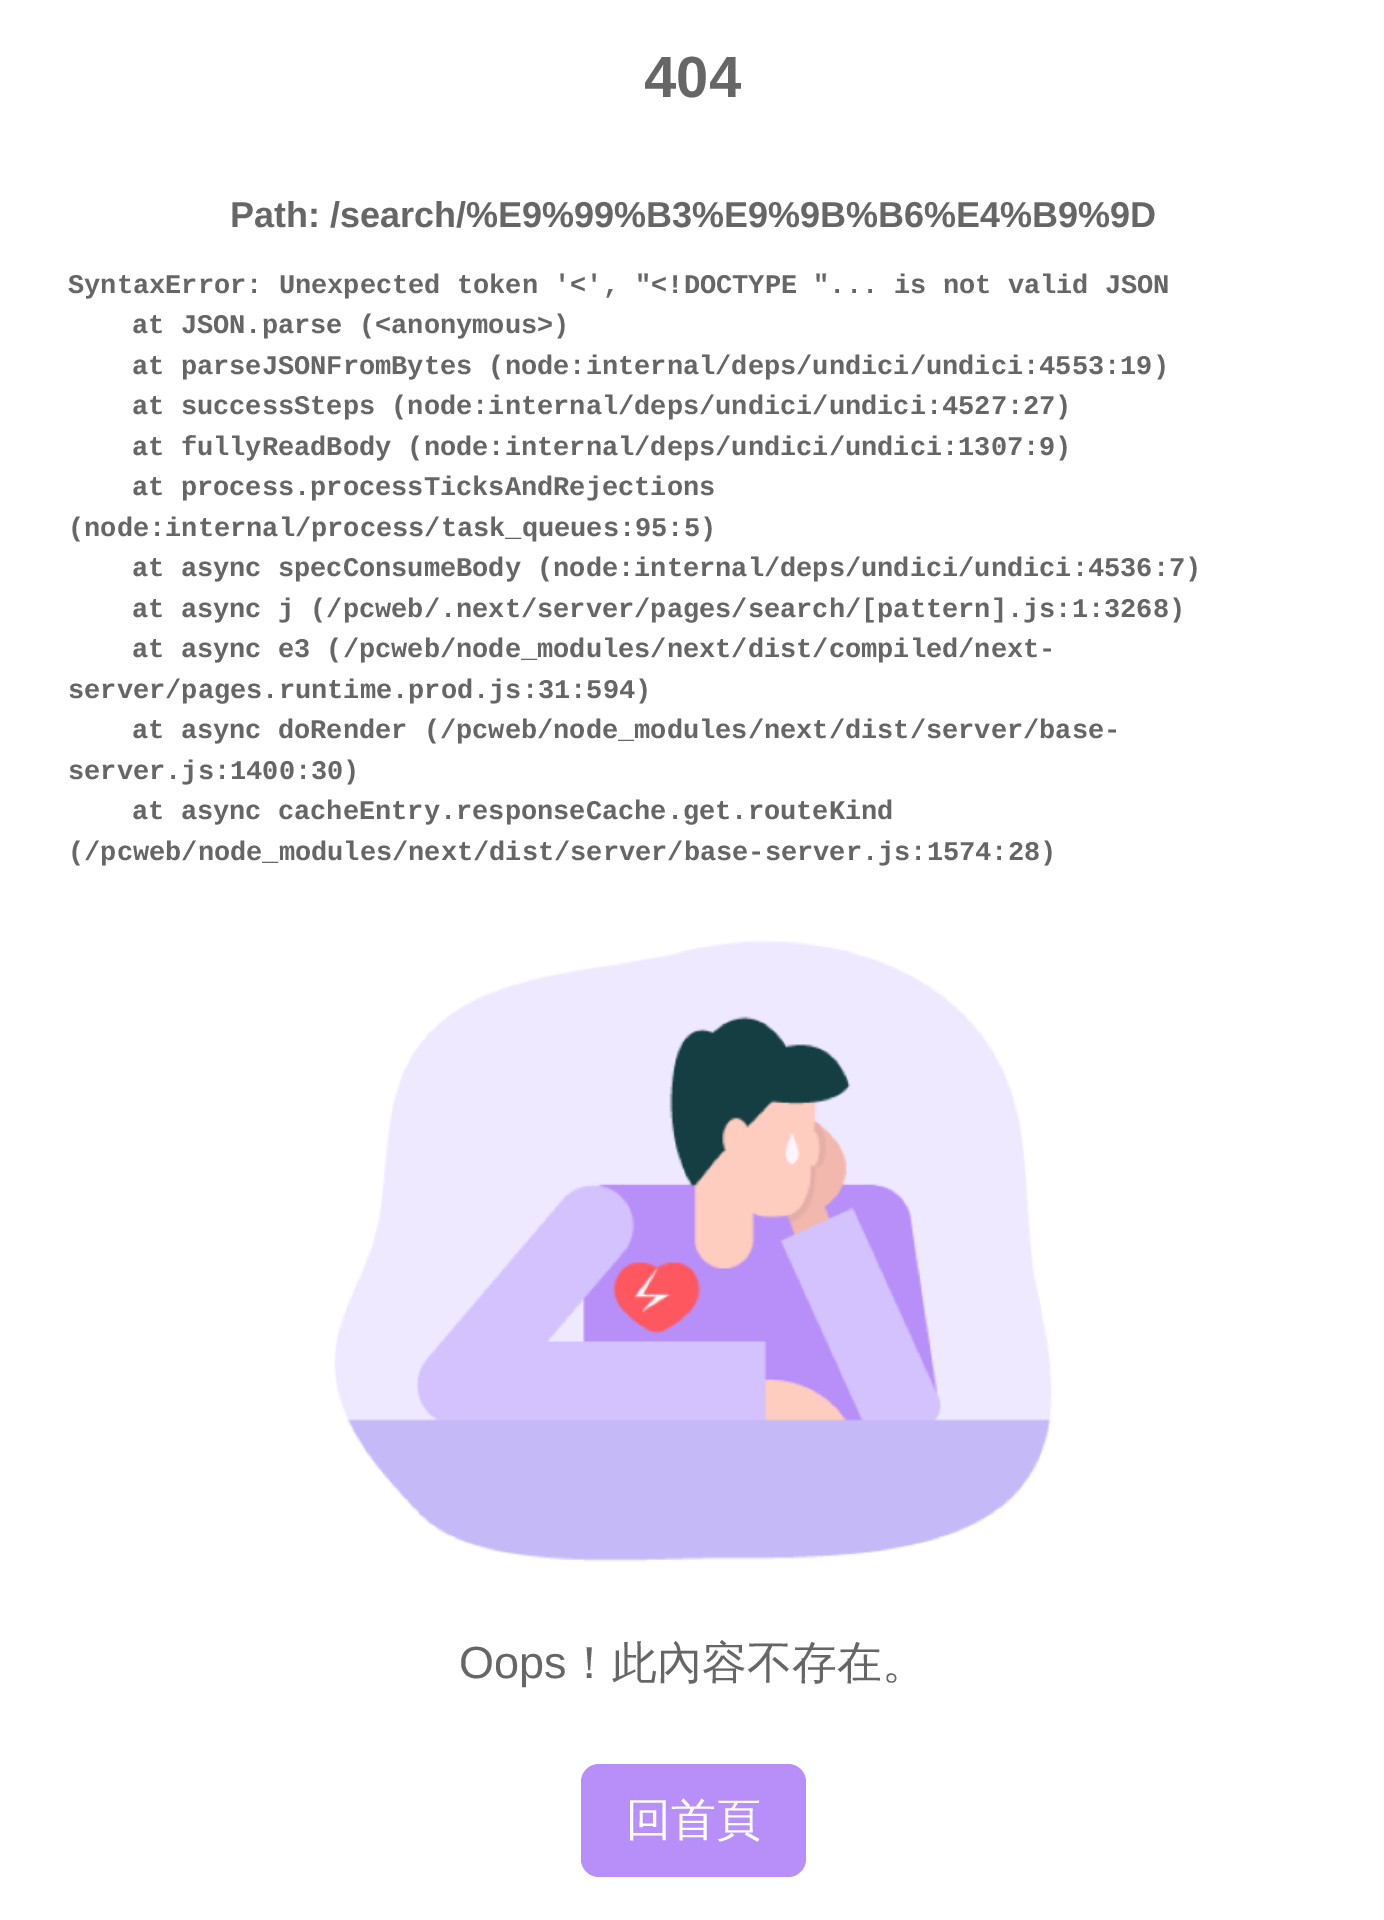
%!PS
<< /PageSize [1384 1920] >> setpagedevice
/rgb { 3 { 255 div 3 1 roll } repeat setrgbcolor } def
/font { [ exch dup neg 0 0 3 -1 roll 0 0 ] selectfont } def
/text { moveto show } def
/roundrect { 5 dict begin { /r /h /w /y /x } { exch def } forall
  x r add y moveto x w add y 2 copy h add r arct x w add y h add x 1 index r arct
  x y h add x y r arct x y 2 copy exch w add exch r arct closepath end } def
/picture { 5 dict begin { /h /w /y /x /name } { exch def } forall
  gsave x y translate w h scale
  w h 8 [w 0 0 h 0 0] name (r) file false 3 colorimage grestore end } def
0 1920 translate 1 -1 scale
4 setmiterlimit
255 255 255 rgb
0 0 1384 1920 rectfill
(img_01.rgb) 334 940 718 622 picture
184 143 249 rgb
581 1764 225 113 18 roundrect fill
/LiberationSans-Bold 58 font
102 102 102 rgb
(404) 644 97 text
/LiberationSans-Bold 36 font
(Path: /search/%E9%99%B3%E9%9B%B6%E4%B9%9D) 230 227 text
/LiberationMono-Bold 27 font
(SyntaxError: Unexpected token '<', "<!DOCTYPE "... is not valid JSON) 68 293 text
(at JSON.parse \(<anonymous>\)) 132 333 text
(at parseJSONFromBytes \(node:internal/deps/undici/undici:4553:19\)) 132 374 text
(at successSteps \(node:internal/deps/undici/undici:4527:27\)) 132 414 text
(at fullyReadBody \(node:internal/deps/undici/undici:1307:9\)) 132 455 text
(at process.processTicksAndRejections) 132 495 text
(\(node:internal/process/task_queues:95:5\)) 68 536 text
(at async specConsumeBody \(node:internal/deps/undici/undici:4536:7\)) 132 576 text
(at async j \(/pcweb/.next/server/pages/search/[pattern].js:1:3268\)) 132 617 text
(at async e3 \(/pcweb/node_modules/next/dist/compiled/next-) 132 657 text
(server/pages.runtime.prod.js:31:594\)) 68 698 text
(at async doRender \(/pcweb/node_modules/next/dist/server/base-) 132 738 text
(server.js:1400:30\)) 68 779 text
(at async cacheEntry.responseCache.get.routeKind) 132 819 text
(\(/pcweb/node_modules/next/dist/server/base-server.js:1574:28\)) 68 860 text
/LiberationSans-Regular 45 font
(Oops) 459 1678 text
/WenQuanYiZenHei-Medium 45 font
(！此內容不存在。) 567 1678 text
255 255 255 rgb
(回首頁) 626 1835 text
showpage
